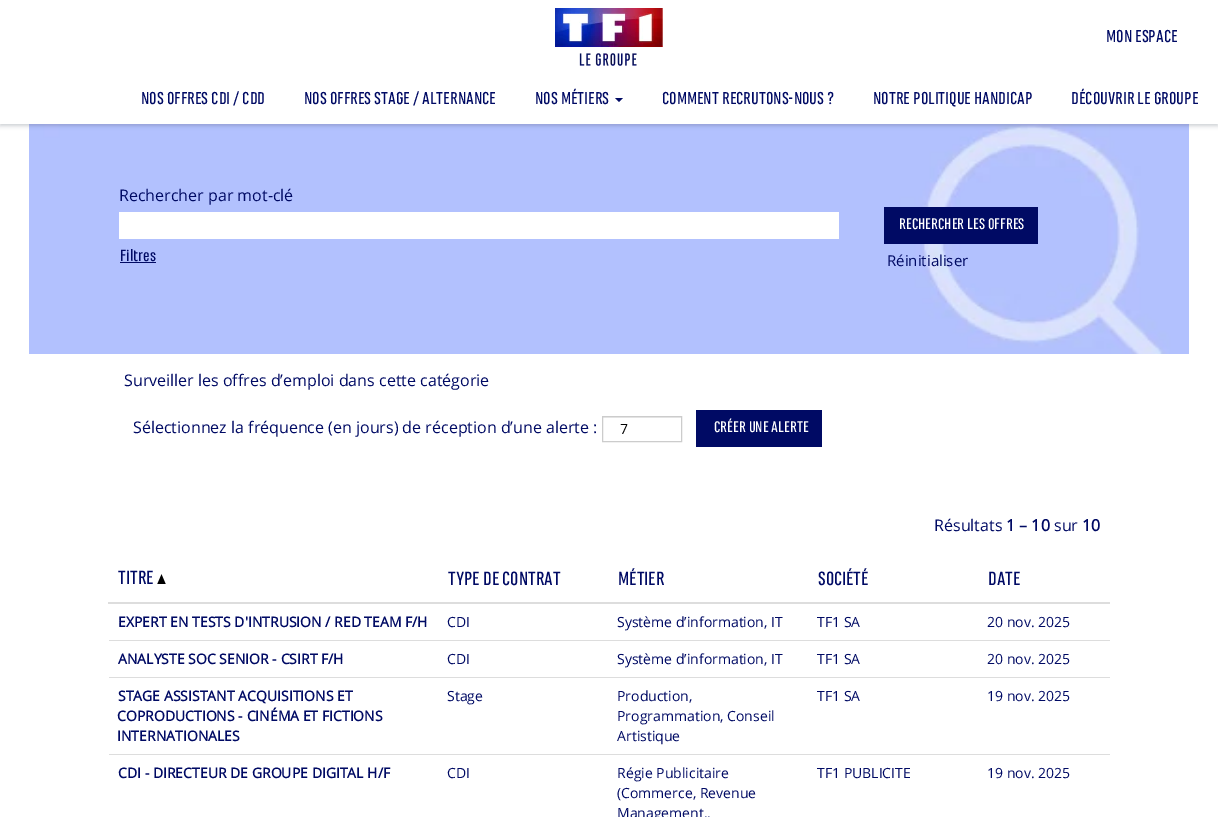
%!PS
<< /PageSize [1218 817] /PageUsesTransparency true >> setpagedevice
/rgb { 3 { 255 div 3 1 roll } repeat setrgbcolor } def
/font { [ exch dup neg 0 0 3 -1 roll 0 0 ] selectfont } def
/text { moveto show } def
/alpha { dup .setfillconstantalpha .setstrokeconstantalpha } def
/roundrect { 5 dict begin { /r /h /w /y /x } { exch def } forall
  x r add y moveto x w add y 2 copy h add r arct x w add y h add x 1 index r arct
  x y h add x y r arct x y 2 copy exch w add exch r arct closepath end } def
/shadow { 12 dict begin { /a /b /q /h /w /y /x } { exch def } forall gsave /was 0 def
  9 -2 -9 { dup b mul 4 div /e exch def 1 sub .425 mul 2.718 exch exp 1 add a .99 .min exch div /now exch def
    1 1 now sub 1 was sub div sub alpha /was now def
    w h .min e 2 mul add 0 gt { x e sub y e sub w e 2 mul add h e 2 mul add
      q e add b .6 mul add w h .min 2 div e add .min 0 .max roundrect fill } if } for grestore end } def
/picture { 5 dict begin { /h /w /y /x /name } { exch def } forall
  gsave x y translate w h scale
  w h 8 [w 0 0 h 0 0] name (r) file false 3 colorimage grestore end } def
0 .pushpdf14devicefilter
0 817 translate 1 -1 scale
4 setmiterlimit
255 255 255 rgb
0 0 1218 817 rectfill
(img_02.rgb) 29 124 1160 230 picture
38 44 63 rgb
0 2 1218 124 0 2 0.22 shadow
255 255 255 rgb
0 0 1218 124 rectfill
(img_01.rgb) 555 8 108 58 picture
0 10 100 rgb
615 98 moveto 8 0 rlineto -4 4 rlineto closepath fill
255 255 255 rgb
119 212 720 27 rectfill
0 10 100 rgb
120 262 36 1 rectfill
884 207 154 37 rectfill
236 236 236 rgb
603 417 78 1 rectfill
204 204 204 rgb
602.5 416.5 79 25 rectstroke
0 10 100 rgb
696 410 126 37 rectfill
(img_03.rgb) 157 574 9 10 picture
221 221 221 rgb
108 602 1002 2 rectfill
109 640 1001 1 rectfill
109 677 1001 1 rectfill
109 754 1001 1 rectfill
/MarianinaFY-Medium 18 font
0 10 100 rgb
(MON ESPACE) 1106 42 text
(NOS OFFRES CDI / CDD) 141 104 text
(NOS OFFRES STAGE / ALTERNANCE) 304 104 text
(NOS MÉTIERS) 535 104 text
(COMMENT RECRUTONS-NOUS ?) 662 104 text
(NOTRE POLITIQUE HANDICAP) 873 104 text
(DÉCOUVRIR LE GROUPE) 1071 104 text
/OpenSans-Regular 16 font
(Rechercher par mot-clé) 119 201 text
/MarianinaFY-Medium 17 font
(Filtres) 120 261 text
/MarianinaFY-Medium 16 font
255 255 255 rgb
(RECHERCHER LES OFFRES) 899 229 text
/OpenSans-Regular 15 font
0 10 100 rgb
(Réinitialiser) 887 266 text
/OpenSans-Regular 16 font
(Surveiller les offres d’emploi dans cette catégorie) 124 386 text
(Sélectionnez la fréquence \(en jours\) de réception d’une alerte :) 133 433 text
/OpenSans-Regular 14 font
0 0 0 rgb
(7) 620 434 text
/MarianinaFY-Medium 16 font
255 255 255 rgb
(CRÉER UNE ALERTE) 714 432 text
/OpenSans-Regular 16 font
0 10 100 rgb
(Résultats) 934 531 text
/OpenSans-Bold 16 font
(1 – 10) 1006 531 text
/OpenSans-Regular 16 font
(sur) 1054 531 text
/OpenSans-Bold 16 font
(10) 1082 531 text
/MarianinaFY-Medium 20 font
(TITRE) 118 584 text
(TYPE DE CONTRAT) 448 585 text
(MÉTIER) 618 585 text
(SOCIÉTÉ) 818 585 text
(DATE) 988 585 text
/OpenSans-Bold 14 font
(EXPERT EN TESTS D'INTRUSION / RED TEAM F/H) 118 627 text
/OpenSans-Regular 14 font
(CDI) 447 627 text
(Système d’information, IT) 617 627 text
(TF1 SA) 817 627 text
(20 nov. 2025) 987 627 text
/OpenSans-Bold 14 font
(ANALYSTE SOC SENIOR - CSIRT F/H) 118 664 text
/OpenSans-Regular 14 font
(CDI) 447 664 text
(Système d’information, IT) 617 664 text
(TF1 SA) 817 664 text
(20 nov. 2025) 987 664 text
/OpenSans-Bold 14 font
(STAGE ASSISTANT ACQUISITIONS ET) 118 701 text
(COPRODUCTIONS - CINÉMA ET FICTIONS) 117 721 text
(INTERNATIONALES) 117 741 text
/OpenSans-Regular 14 font
(Stage) 447 701 text
(Production,) 617 701 text
(Programmation, Conseil) 617 721 text
(Artistique) 617 741 text
(TF1 SA) 817 701 text
(19 nov. 2025) 987 701 text
/OpenSans-Bold 14 font
(CDI - DIRECTEUR DE GROUPE DIGITAL H/F) 118 778 text
/OpenSans-Regular 14 font
(CDI) 447 778 text
(Régie Publicitaire) 617 778 text
(\(Commerce, Revenue) 617 798 text
(Management..) 617 818 text
(TF1 PUBLICITE) 817 778 text
(19 nov. 2025) 987 778 text
.poppdf14devicefilter showpage
